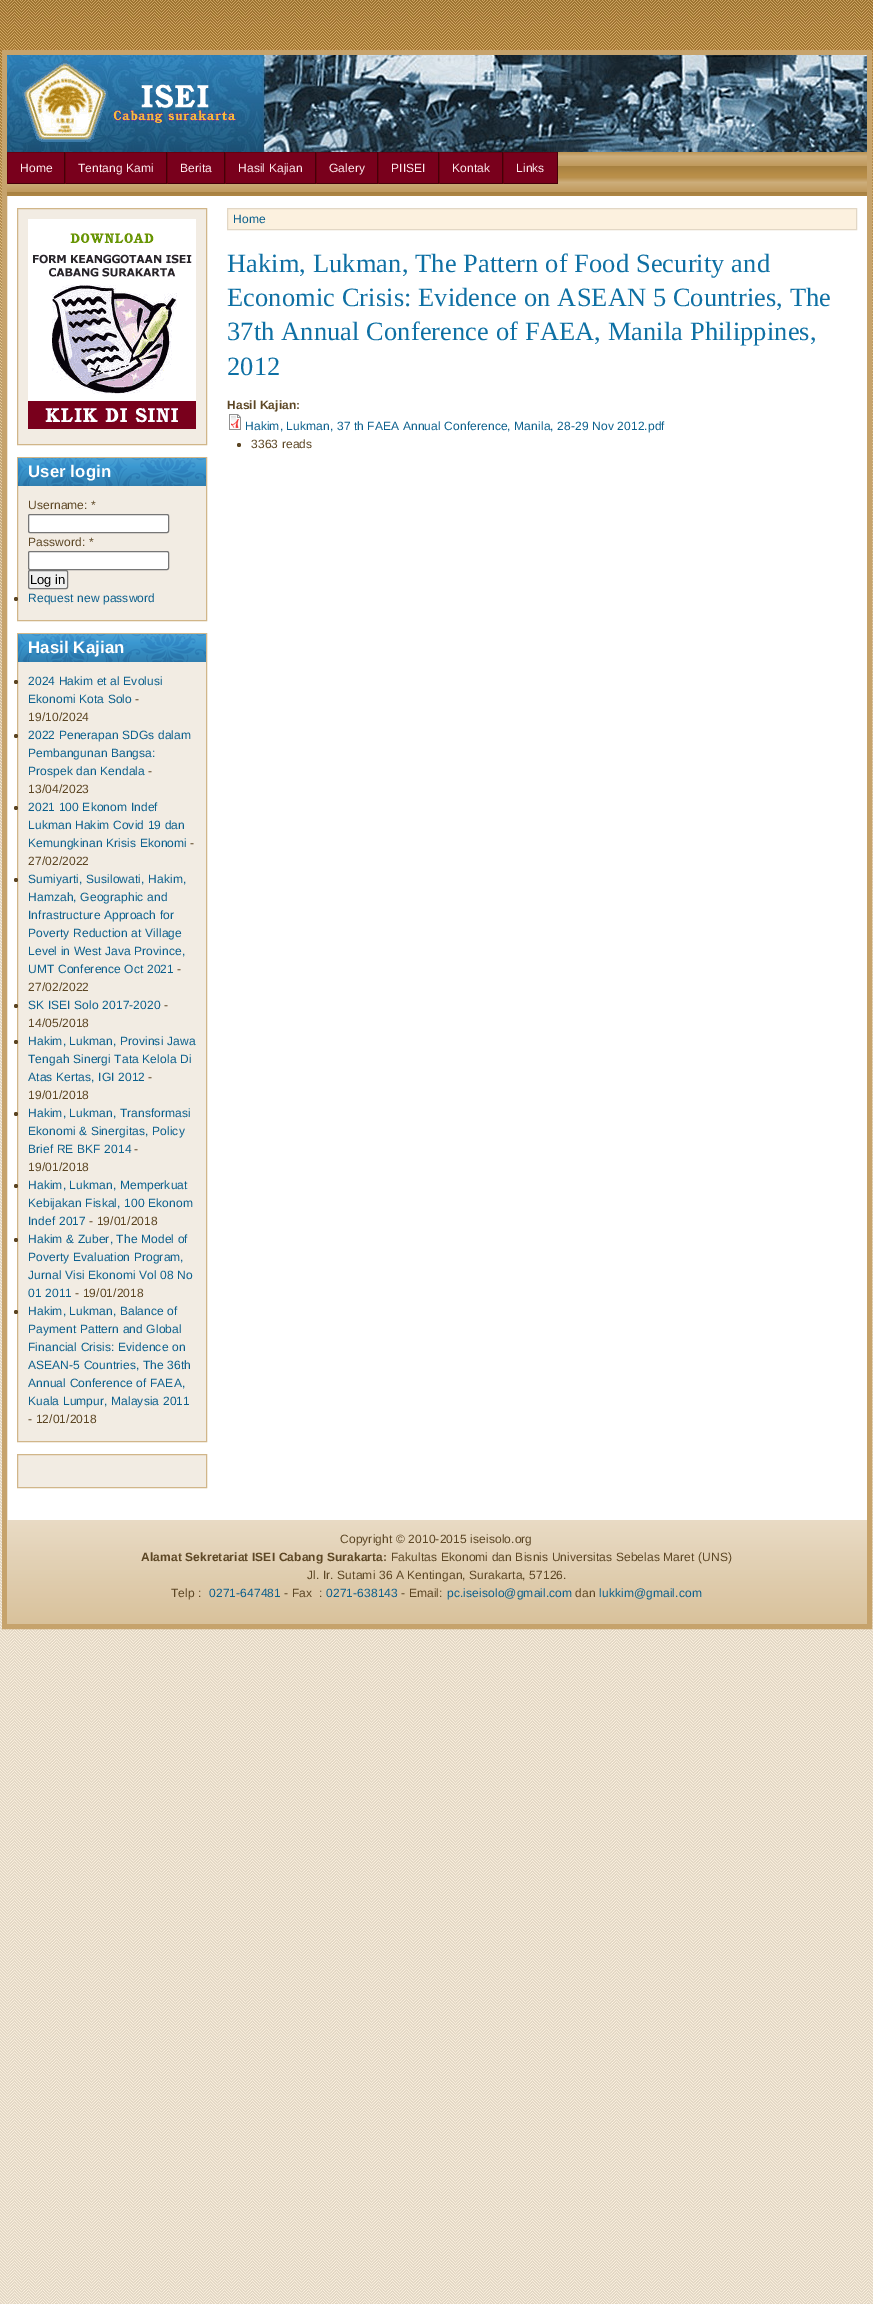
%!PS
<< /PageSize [873 2304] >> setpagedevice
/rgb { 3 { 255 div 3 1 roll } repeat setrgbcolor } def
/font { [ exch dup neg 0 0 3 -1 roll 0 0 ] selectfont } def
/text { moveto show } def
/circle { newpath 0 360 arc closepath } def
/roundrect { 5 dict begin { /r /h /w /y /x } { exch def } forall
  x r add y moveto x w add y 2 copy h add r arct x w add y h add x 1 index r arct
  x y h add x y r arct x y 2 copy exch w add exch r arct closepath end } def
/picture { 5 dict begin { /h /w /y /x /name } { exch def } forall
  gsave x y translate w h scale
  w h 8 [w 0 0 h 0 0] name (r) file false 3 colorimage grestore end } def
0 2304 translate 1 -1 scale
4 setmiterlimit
255 255 255 rgb
0 0 873 2304 rectfill
(img_01.rgb) 0 888 873 1416 picture
(img_02.rgb) 0 0 873 888 picture
7 196 860 1324 rectfill
198 163 108 rgb
5 setlinewidth
4.5 52.5 865 1574 rectstroke
(img_03.rgb) 7 55 860 97 picture
(img_04.rgb) 22 60 214 82 picture
(img_05.rgb) 7 152 860 44 picture
121 0 28 rgb
8 153 56 30 rectfill
104 0 14 rgb
7 152 551 1 rectfill
69 0 9 rgb
64 152 1 32 rectfill
7 183 58 1 rectfill
104 0 14 rgb
7 152 1 32 rectfill
121 0 28 rgb
66 153 100 30 rectfill
69 0 9 rgb
166 152 1 32 rectfill
65 183 102 1 rectfill
104 0 14 rgb
65 152 1 32 rectfill
121 0 28 rgb
168 153 56 30 rectfill
69 0 9 rgb
224 152 1 32 rectfill
167 183 58 1 rectfill
104 0 14 rgb
167 152 1 32 rectfill
121 0 28 rgb
226 153 89 30 rectfill
69 0 9 rgb
315 152 1 32 rectfill
225 183 91 1 rectfill
104 0 14 rgb
225 152 1 32 rectfill
121 0 28 rgb
317 153 60 30 rectfill
69 0 9 rgb
377 152 1 32 rectfill
316 183 62 1 rectfill
104 0 14 rgb
316 152 1 32 rectfill
121 0 28 rgb
379 153 59 30 rectfill
69 0 9 rgb
438 152 1 32 rectfill
378 183 61 1 rectfill
104 0 14 rgb
378 152 1 32 rectfill
121 0 28 rgb
440 153 62 30 rectfill
69 0 9 rgb
502 152 1 32 rectfill
439 183 64 1 rectfill
104 0 14 rgb
439 152 1 32 rectfill
121 0 28 rgb
504 153 53 30 rectfill
69 0 9 rgb
557 152 1 32 rectfill
503 183 55 1 rectfill
104 0 14 rgb
503 152 1 32 rectfill
252 241 223 rgb
227.5 208.5 moveto 629 0 rlineto 0 21 rlineto -629 0 rlineto closepath gsave fill grestore
226 215 197 rgb
1 setlinewidth
stroke
(img_06.rgb) 229 414 12 16 picture
92 70 36 rgb
239 445 2 circle fill
242 236 227 rgb
17.5 208.5 moveto 189 0 rlineto 0 236 rlineto -189 0 rlineto closepath gsave fill grestore
209 182 137 rgb
stroke
(img_07.rgb) 28 219 168 210 picture
242 236 227 rgb
18 486 188 134 rectfill
209 182 137 rgb
17.5 457.5 189 163 rectstroke
(img_08.rgb) 18 458 188 28 picture
255 255 255 rgb
28.5 514.5 140 18 1.5 roundrect gsave fill grestore
118 118 118 rgb
stroke
255 255 255 rgb
28.5 551.5 140 18 1.5 roundrect gsave fill grestore
118 118 118 rgb
stroke
239 239 239 rgb
28.5 570.5 39 18 1.5 roundrect gsave fill grestore
118 118 118 rgb
stroke
92 70 36 rgb
16 599 2 circle fill
242 236 227 rgb
18 662 188 779 rectfill
209 182 137 rgb
17.5 633.5 189 808 rectstroke
(img_08.rgb) 18 634 188 28 picture
92 70 36 rgb
16 682 2 circle fill
16 736 2 circle fill
16 808 2 circle fill
16 880 2 circle fill
16 1006 2 circle fill
16 1042 2 circle fill
16 1114 2 circle fill
16 1186 2 circle fill
16 1240 2 circle fill
16 1312 2 circle fill
242 236 227 rgb
17.5 1454.5 moveto 189 0 rlineto 0 33 rlineto -189 0 rlineto closepath gsave fill grestore
209 182 137 rgb
stroke
(img_09.rgb) 7 1520 860 104 picture
/LiberationSans-Regular 12 font
255 235 238 rgb
20 172 moveto 0.12 0 (Home) ashow
78 172 moveto 0.12 0 (Tentang Kami) ashow
180 172 moveto 0.12 0 (Berita) ashow
238 172 moveto 0.12 0 (Hasil Kajian) ashow
329 172 moveto 0.12 0 (Galery) ashow
391 172 moveto 0.12 0 (PIISEI) ashow
452 172 moveto 0.12 0 (Kontak) ashow
516 172 moveto 0.12 0 (Links) ashow
12 96 141 rgb
233 223 moveto 0.12 0 (Home) ashow
/LiberationSerif-Regular 26.4 font
14 112 164 rgb
227 272 moveto 0.12 0 (Hakim, Lukman, The Pattern of Food Security and) ashow
227 306 moveto 0.12 0 (Economic Crisis: Evidence on ASEAN 5 Countries, The) ashow
227 340 moveto 0.12 0 (37th Annual Conference of FAEA, Manila Philippines,) ashow
227 375 moveto 0.12 0 (2012) ashow
/LiberationSans-Bold 12 font
92 70 36 rgb
227 409 moveto 0.12 0 (Hasil Kajian:) ashow
/LiberationSans-Regular 12 font
12 96 141 rgb
245 430 moveto 0.12 0 (Hakim, Lukman, 37 th FAEA Annual Conference, Manila, 28-29 Nov 2012.pdf) ashow
92 70 36 rgb
251 448 moveto 0.12 0 (3363 reads) ashow
/LiberationSans-Bold 16.75 font
255 255 255 rgb
28 477 moveto 0.12 0 (User login) ashow
/LiberationSans-Regular 12 font
92 70 36 rgb
28 509 moveto 0.12 0 (Username: *) ashow
28 546 moveto 0.12 0 (Password: *) ashow
/LiberationSans-Regular 13 font
0 0 0 rgb
(Log in) 30 584 text
/LiberationSans-Regular 12 font
12 96 141 rgb
28 602 moveto 0.12 0 (Request new password) ashow
/LiberationSans-Bold 16.75 font
255 255 255 rgb
28 653 moveto 0.12 0 (Hasil Kajian) ashow
/LiberationSans-Regular 12 font
12 96 141 rgb
28 685 moveto 0.12 0 (2024 Hakim et al Evolusi) ashow
28 703 moveto 0.12 0 (Ekonomi Kota Solo) ashow
92 70 36 rgb
135 703 moveto 0.12 0 (-) ashow
28 721 moveto 0.12 0 (19/10/2024) ashow
12 96 141 rgb
28 739 moveto 0.12 0 (2022 Penerapan SDGs dalam) ashow
28 757 moveto 0.12 0 (Pembangunan Bangsa:) ashow
28 775 moveto 0.12 0 (Prospek dan Kendala) ashow
92 70 36 rgb
148 775 moveto 0.12 0 (-) ashow
28 793 moveto 0.12 0 (13/04/2023) ashow
12 96 141 rgb
28 811 moveto 0.12 0 (2021 100 Ekonom Indef) ashow
28 829 moveto 0.12 0 (Lukman Hakim Covid 19 dan) ashow
28 847 moveto 0.12 0 (Kemungkinan Krisis Ekonomi) ashow
92 70 36 rgb
190 847 moveto 0.12 0 (-) ashow
28 865 moveto 0.12 0 (27/02/2022) ashow
12 96 141 rgb
28 883 moveto 0.12 0 (Sumiyarti, Susilowati, Hakim,) ashow
28 901 moveto 0.12 0 (Hamzah, Geographic and) ashow
28 919 moveto 0.12 0 (Infrastructure Approach for) ashow
28 937 moveto 0.12 0 (Poverty Reduction at Village) ashow
28 955 moveto 0.12 0 (Level in West Java Province,) ashow
28 973 moveto 0.12 0 (UMT Conference Oct 2021) ashow
92 70 36 rgb
177 973 moveto 0.12 0 (-) ashow
28 991 moveto 0.12 0 (27/02/2022) ashow
12 96 141 rgb
28 1009 moveto 0.12 0 (SK ISEI Solo 2017-2020) ashow
92 70 36 rgb
164 1009 moveto 0.12 0 (-) ashow
28 1027 moveto 0.12 0 (14/05/2018) ashow
12 96 141 rgb
28 1045 moveto 0.12 0 (Hakim, Lukman, Provinsi Jawa) ashow
28 1063 moveto 0.12 0 (Tengah Sinergi Tata Kelola Di) ashow
28 1081 moveto 0.12 0 (Atas Kertas, IGI 2012) ashow
92 70 36 rgb
148 1081 moveto 0.12 0 (-) ashow
28 1099 moveto 0.12 0 (19/01/2018) ashow
12 96 141 rgb
28 1117 moveto 0.12 0 (Hakim, Lukman, Transformasi) ashow
28 1135 moveto 0.12 0 (Ekonomi & Sinergitas, Policy) ashow
28 1153 moveto 0.12 0 (Brief RE BKF 2014) ashow
92 70 36 rgb
134 1153 moveto 0.12 0 (-) ashow
28 1171 moveto 0.12 0 (19/01/2018) ashow
12 96 141 rgb
28 1189 moveto 0.12 0 (Hakim, Lukman, Memperkuat) ashow
28 1207 moveto 0.12 0 (Kebijakan Fiskal, 100 Ekonom) ashow
28 1225 moveto 0.12 0 (Indef 2017) ashow
92 70 36 rgb
89 1225 moveto 0.12 0 (- 19/01/2018) ashow
12 96 141 rgb
28 1243 moveto 0.12 0 (Hakim & Zuber, The Model of) ashow
28 1261 moveto 0.12 0 (Poverty Evaluation Program,) ashow
28 1279 moveto 0.12 0 (Jurnal Visi Ekonomi Vol 08 No) ashow
28 1297 moveto 0.12 0 (01 2011) ashow
92 70 36 rgb
75 1297 moveto 0.12 0 (- 19/01/2018) ashow
12 96 141 rgb
28 1315 moveto 0.12 0 (Hakim, Lukman, Balance of) ashow
28 1333 moveto 0.12 0 (Payment Pattern and Global) ashow
28 1351 moveto 0.12 0 (Financial Crisis: Evidence on) ashow
28 1369 moveto 0.12 0 (ASEAN-5 Countries, The 36th) ashow
28 1387 moveto 0.12 0 (Annual Conference of FAEA,) ashow
28 1405 moveto 0.12 0 (Kuala Lumpur, Malaysia 2011) ashow
92 70 36 rgb
28 1423 moveto 0.12 0 (- 12/01/2018) ashow
340 1543 moveto 0.12 0 (Copyright © 2010-2015 iseisolo.org) ashow
/LiberationSans-Bold 12 font
141 1561 moveto 0.12 0 (Alamat Sekretariat ISEI Cabang Surakarta:) ashow
/LiberationSans-Regular 12 font
391 1561 moveto 0.12 0 (Fakultas Ekonomi dan Bisnis Universitas Sebelas Maret \(UNS\)) ashow
307 1579 moveto 0.12 0 (Jl. Ir. Sutami 36 A Kentingan, Surakarta, 57126.) ashow
171 1597 moveto 0.12 0 (Telp :) ashow
12 96 141 rgb
209 1597 moveto 0.12 0 (0271-647481) ashow
92 70 36 rgb
284 1597 moveto 0.12 0 (- Fax  :) ashow
12 96 141 rgb
326 1597 moveto 0.12 0 (0271-638143) ashow
92 70 36 rgb
401 1597 moveto 0.12 0 (- Email:) ashow
12 96 141 rgb
447 1597 moveto 0.12 0 (pc.iseisolo@gmail.com) ashow
92 70 36 rgb
575 1597 moveto 0.12 0 (dan) ashow
12 96 141 rgb
599 1597 moveto 0.12 0 (lukkim@gmail.com) ashow
showpage
